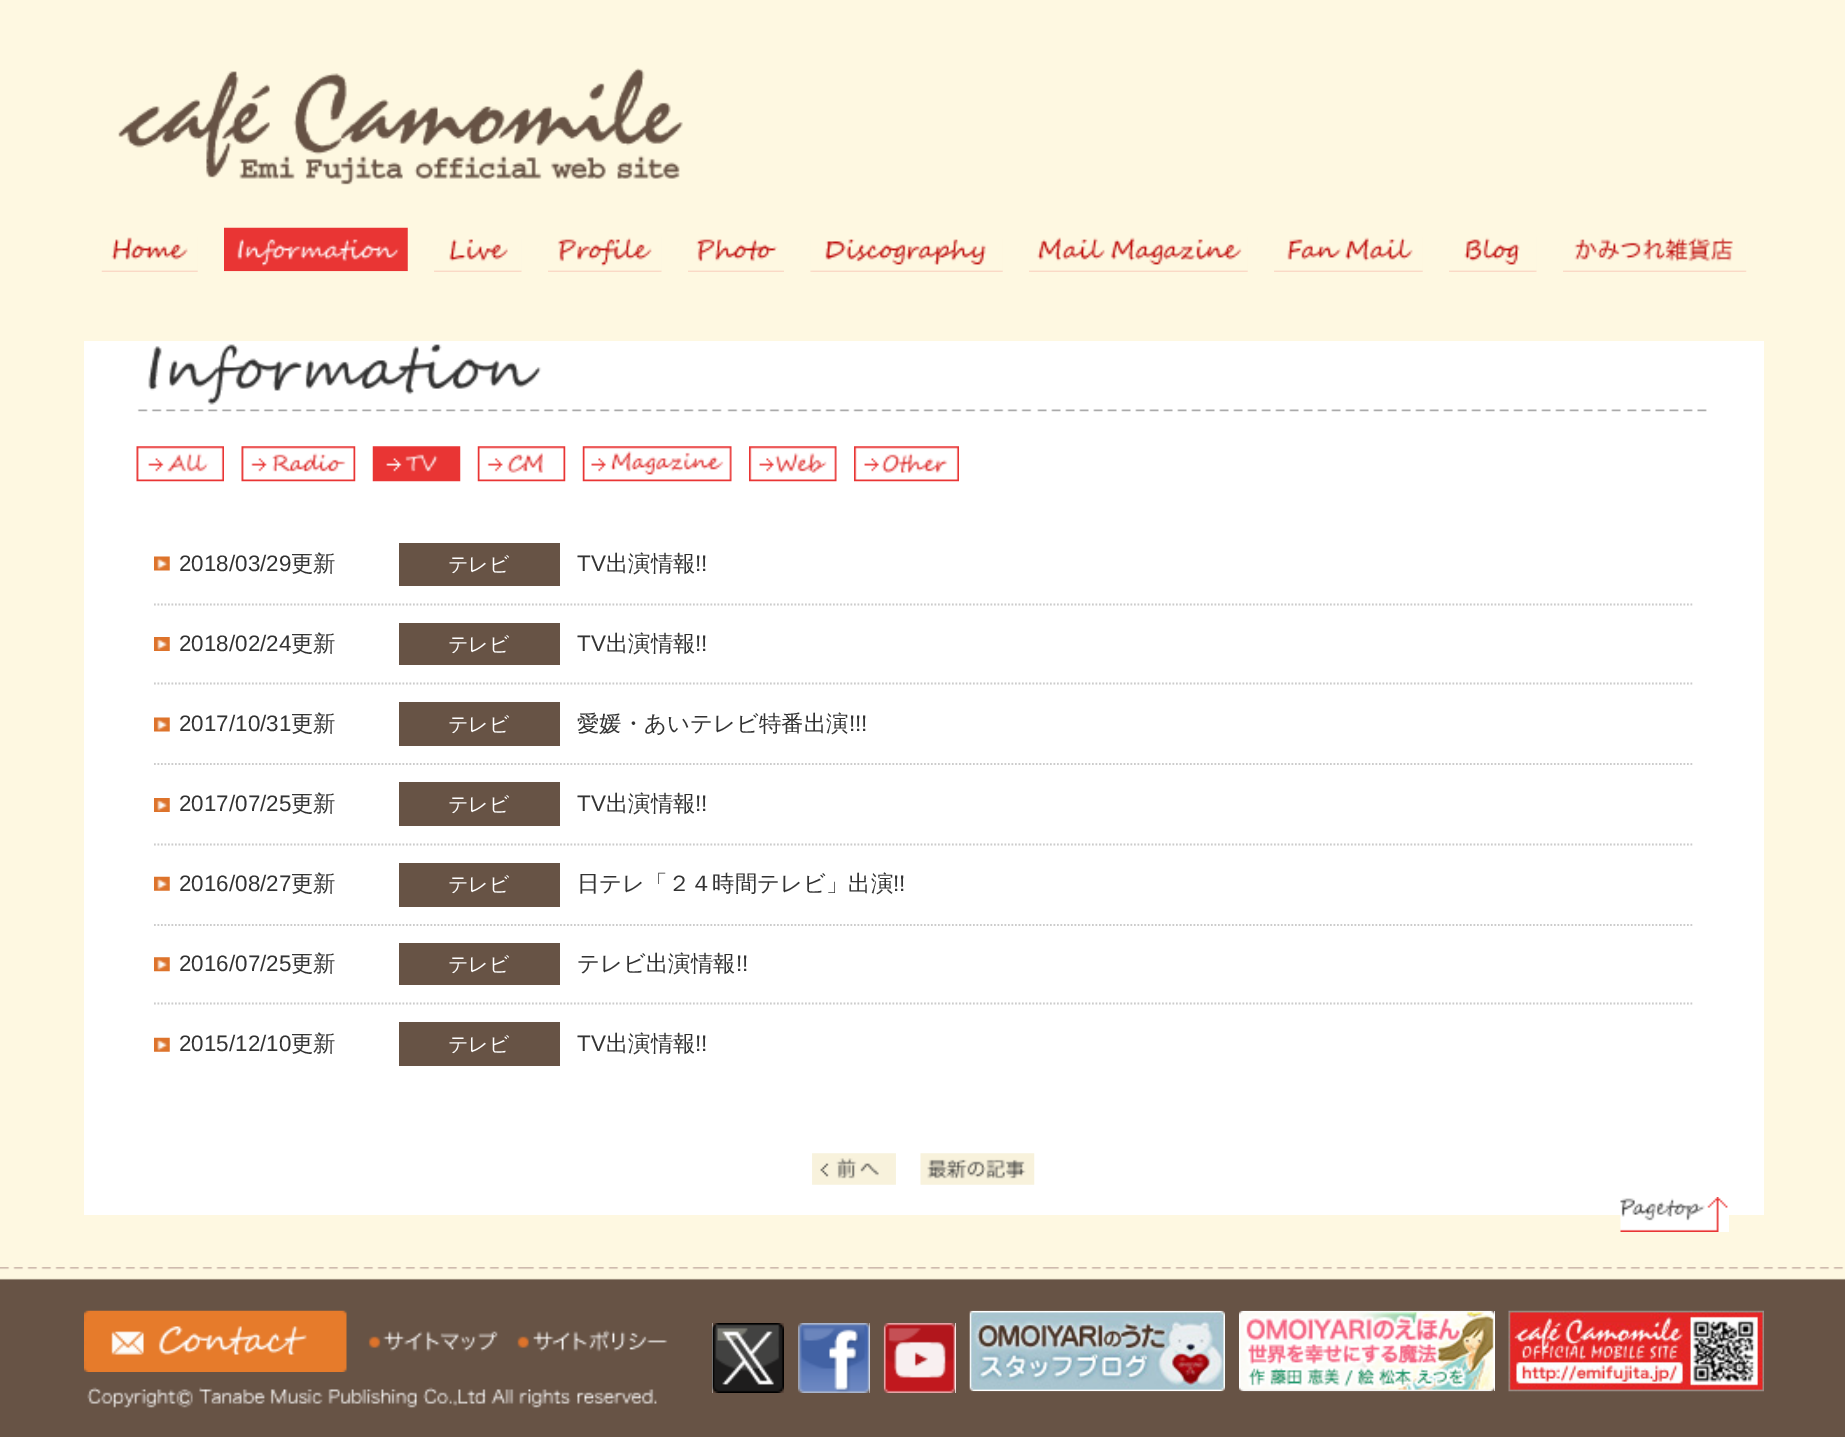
%!PS
<< /PageSize [1845 1437] >> setpagedevice
/rgb { 3 { 255 div 3 1 roll } repeat setrgbcolor } def
/font { [ exch dup neg 0 0 3 -1 roll 0 0 ] selectfont } def
/text { moveto show } def
/picture { 5 dict begin { /h /w /y /x /name } { exch def } forall
  gsave x y translate w h scale
  w h 8 [w 0 0 h 0 0] name (r) file false 3 colorimage grestore end } def
0 1437 translate 1 -1 scale
4 setmiterlimit
254 248 225 rgb
0 0 1845 1437 rectfill
(img_01.rgb) 118 68 565 117 picture
(img_02.rgb) 101 237 97 35 picture
(img_03.rgb) 224 227 184 45 picture
(img_04.rgb) 434 239 88 33 picture
(img_05.rgb) 548 237 114 35 picture
(img_06.rgb) 688 239 96 33 picture
(img_07.rgb) 810 239 193 33 picture
(img_08.rgb) 1029 237 219 35 picture
(img_09.rgb) 1274 237 149 35 picture
(img_10.rgb) 1449 237 88 35 picture
(img_11.rgb) 1563 237 184 35 picture
255 255 255 rgb
84 341 1680 874 rectfill
(img_12.rgb) 137 344 1570 68 picture
(img_13.rgb) 136 446 88 36 picture
(img_14.rgb) 241 446 115 36 picture
(img_15.rgb) 372 446 89 36 picture
(img_16.rgb) 477 446 89 36 picture
(img_17.rgb) 582 446 150 36 picture
(img_18.rgb) 749 446 88 36 picture
(img_19.rgb) 854 446 105 36 picture
204 204 204 rgb
1.8 setlinewidth
[1.75 1.75] 0 setdash
154 604.5 moveto 1540 0 rlineto stroke
(img_20.rgb) 154 556 16 15 picture
103 83 69 rgb
399 543 161 43 rectfill
204 204 204 rgb
154 683.5 moveto 1540 0 rlineto stroke
(img_21.rgb) 154 637 16 14 picture
103 83 69 rgb
399 623 161 42 rectfill
204 204 204 rgb
154 764 moveto 1540 0 rlineto stroke
(img_20.rgb) 154 717 16 15 picture
103 83 69 rgb
399 702 161 44 rectfill
204 204 204 rgb
154 844.5 moveto 1540 0 rlineto stroke
(img_21.rgb) 154 798 16 14 picture
103 83 69 rgb
399 782 161 44 rectfill
204 204 204 rgb
154 925 moveto 1540 0 rlineto stroke
(img_22.rgb) 154 876 16 15 picture
103 83 69 rgb
399 863 161 44 rectfill
204 204 204 rgb
154 1003.5 moveto 1540 0 rlineto stroke
(img_23.rgb) 154 957 16 15 picture
103 83 69 rgb
399 943 161 42 rectfill
(img_22.rgb) 154 1037 16 15 picture
399 1022 161 44 rectfill
(img_24.rgb) 812 1153 84 32 picture
(img_25.rgb) 920 1153 115 32 picture
(img_26.rgb) 1620 1197 109 35 picture
0 1280 1845 157 rectfill
(img_27.rgb) 0 1267 1845 13 picture
(img_28.rgb) 84 1310 263 62 picture
(img_29.rgb) 368 1331 130 21 picture
(img_30.rgb) 517 1329 151 23 picture
255 255 255 rgb
712 1323 1 70 rectfill
(img_31.rgb) 712 1323 72 70 picture
869 1323 1 70 rectfill
(img_32.rgb) 798 1323 72 70 picture
955 1323 1 70 rectfill
(img_33.rgb) 883 1323 73 70 picture
(img_34.rgb) 969 1310 256 82 picture
1494 1311 1 80 rectfill
(img_35.rgb) 1239 1310 256 82 picture
(img_36.rgb) 1508 1310 256 82 picture
(img_37.rgb) 87 1387 570 21 picture
/LiberationSans-Regular 22.4 font
51 51 51 rgb
(2018/03/29) 179 571 text
/WenQuanYiZenHei-Medium 22.4 font
(更新) 291 571 text
/WenQuanYiZenHei-Medium 20 font
255 255 255 rgb
(テレビ) 448 571 text
/LiberationSans-Regular 22.4 font
51 51 51 rgb
(TV) 577 571 text
/WenQuanYiZenHei-Medium 22.4 font
(出演情報) 606 571 text
/LiberationSans-Regular 22.4 font
(!!) 695 571 text
(2018/02/24) 179 651 text
/WenQuanYiZenHei-Medium 22.4 font
(更新) 291 651 text
/WenQuanYiZenHei-Medium 20 font
255 255 255 rgb
(テレビ) 448 651 text
/LiberationSans-Regular 22.4 font
51 51 51 rgb
(TV) 577 651 text
/WenQuanYiZenHei-Medium 22.4 font
(出演情報) 606 651 text
/LiberationSans-Regular 22.4 font
(!!) 695 651 text
(2017/10/31) 179 731 text
/WenQuanYiZenHei-Medium 22.4 font
(更新) 291 731 text
/WenQuanYiZenHei-Medium 20 font
255 255 255 rgb
(テレビ) 448 731 text
/WenQuanYiZenHei-Medium 22.4 font
51 51 51 rgb
(愛媛・あいテレビ特番出演) 577 731 text
/LiberationSans-Regular 22.4 font
(!!!) 849 731 text
(2017/07/25) 179 811 text
/WenQuanYiZenHei-Medium 22.4 font
(更新) 291 811 text
/WenQuanYiZenHei-Medium 20 font
255 255 255 rgb
(テレビ) 448 811 text
/LiberationSans-Regular 22.4 font
51 51 51 rgb
(TV) 577 811 text
/WenQuanYiZenHei-Medium 22.4 font
(出演情報) 606 811 text
/LiberationSans-Regular 22.4 font
(!!) 695 811 text
(2016/08/27) 179 891 text
/WenQuanYiZenHei-Medium 22.4 font
(更新) 291 891 text
/WenQuanYiZenHei-Medium 20 font
255 255 255 rgb
(テレビ) 448 891 text
/WenQuanYiZenHei-Medium 22.4 font
51 51 51 rgb
(日テレ「２４時間テレビ」出演) 577 891 text
/LiberationSans-Regular 22.4 font
(!!) 893 891 text
(2016/07/25) 179 971 text
/WenQuanYiZenHei-Medium 22.4 font
(更新) 291 971 text
/WenQuanYiZenHei-Medium 20 font
255 255 255 rgb
(テレビ) 448 971 text
/WenQuanYiZenHei-Medium 22.4 font
51 51 51 rgb
(テレビ出演情報) 577 971 text
/LiberationSans-Regular 22.4 font
(!!) 736 971 text
(2015/12/10) 179 1051 text
/WenQuanYiZenHei-Medium 22.4 font
(更新) 291 1051 text
/WenQuanYiZenHei-Medium 20 font
255 255 255 rgb
(テレビ) 448 1051 text
/LiberationSans-Regular 22.4 font
51 51 51 rgb
(TV) 577 1051 text
/WenQuanYiZenHei-Medium 22.4 font
(出演情報) 606 1051 text
/LiberationSans-Regular 22.4 font
(!!) 695 1051 text
showpage
